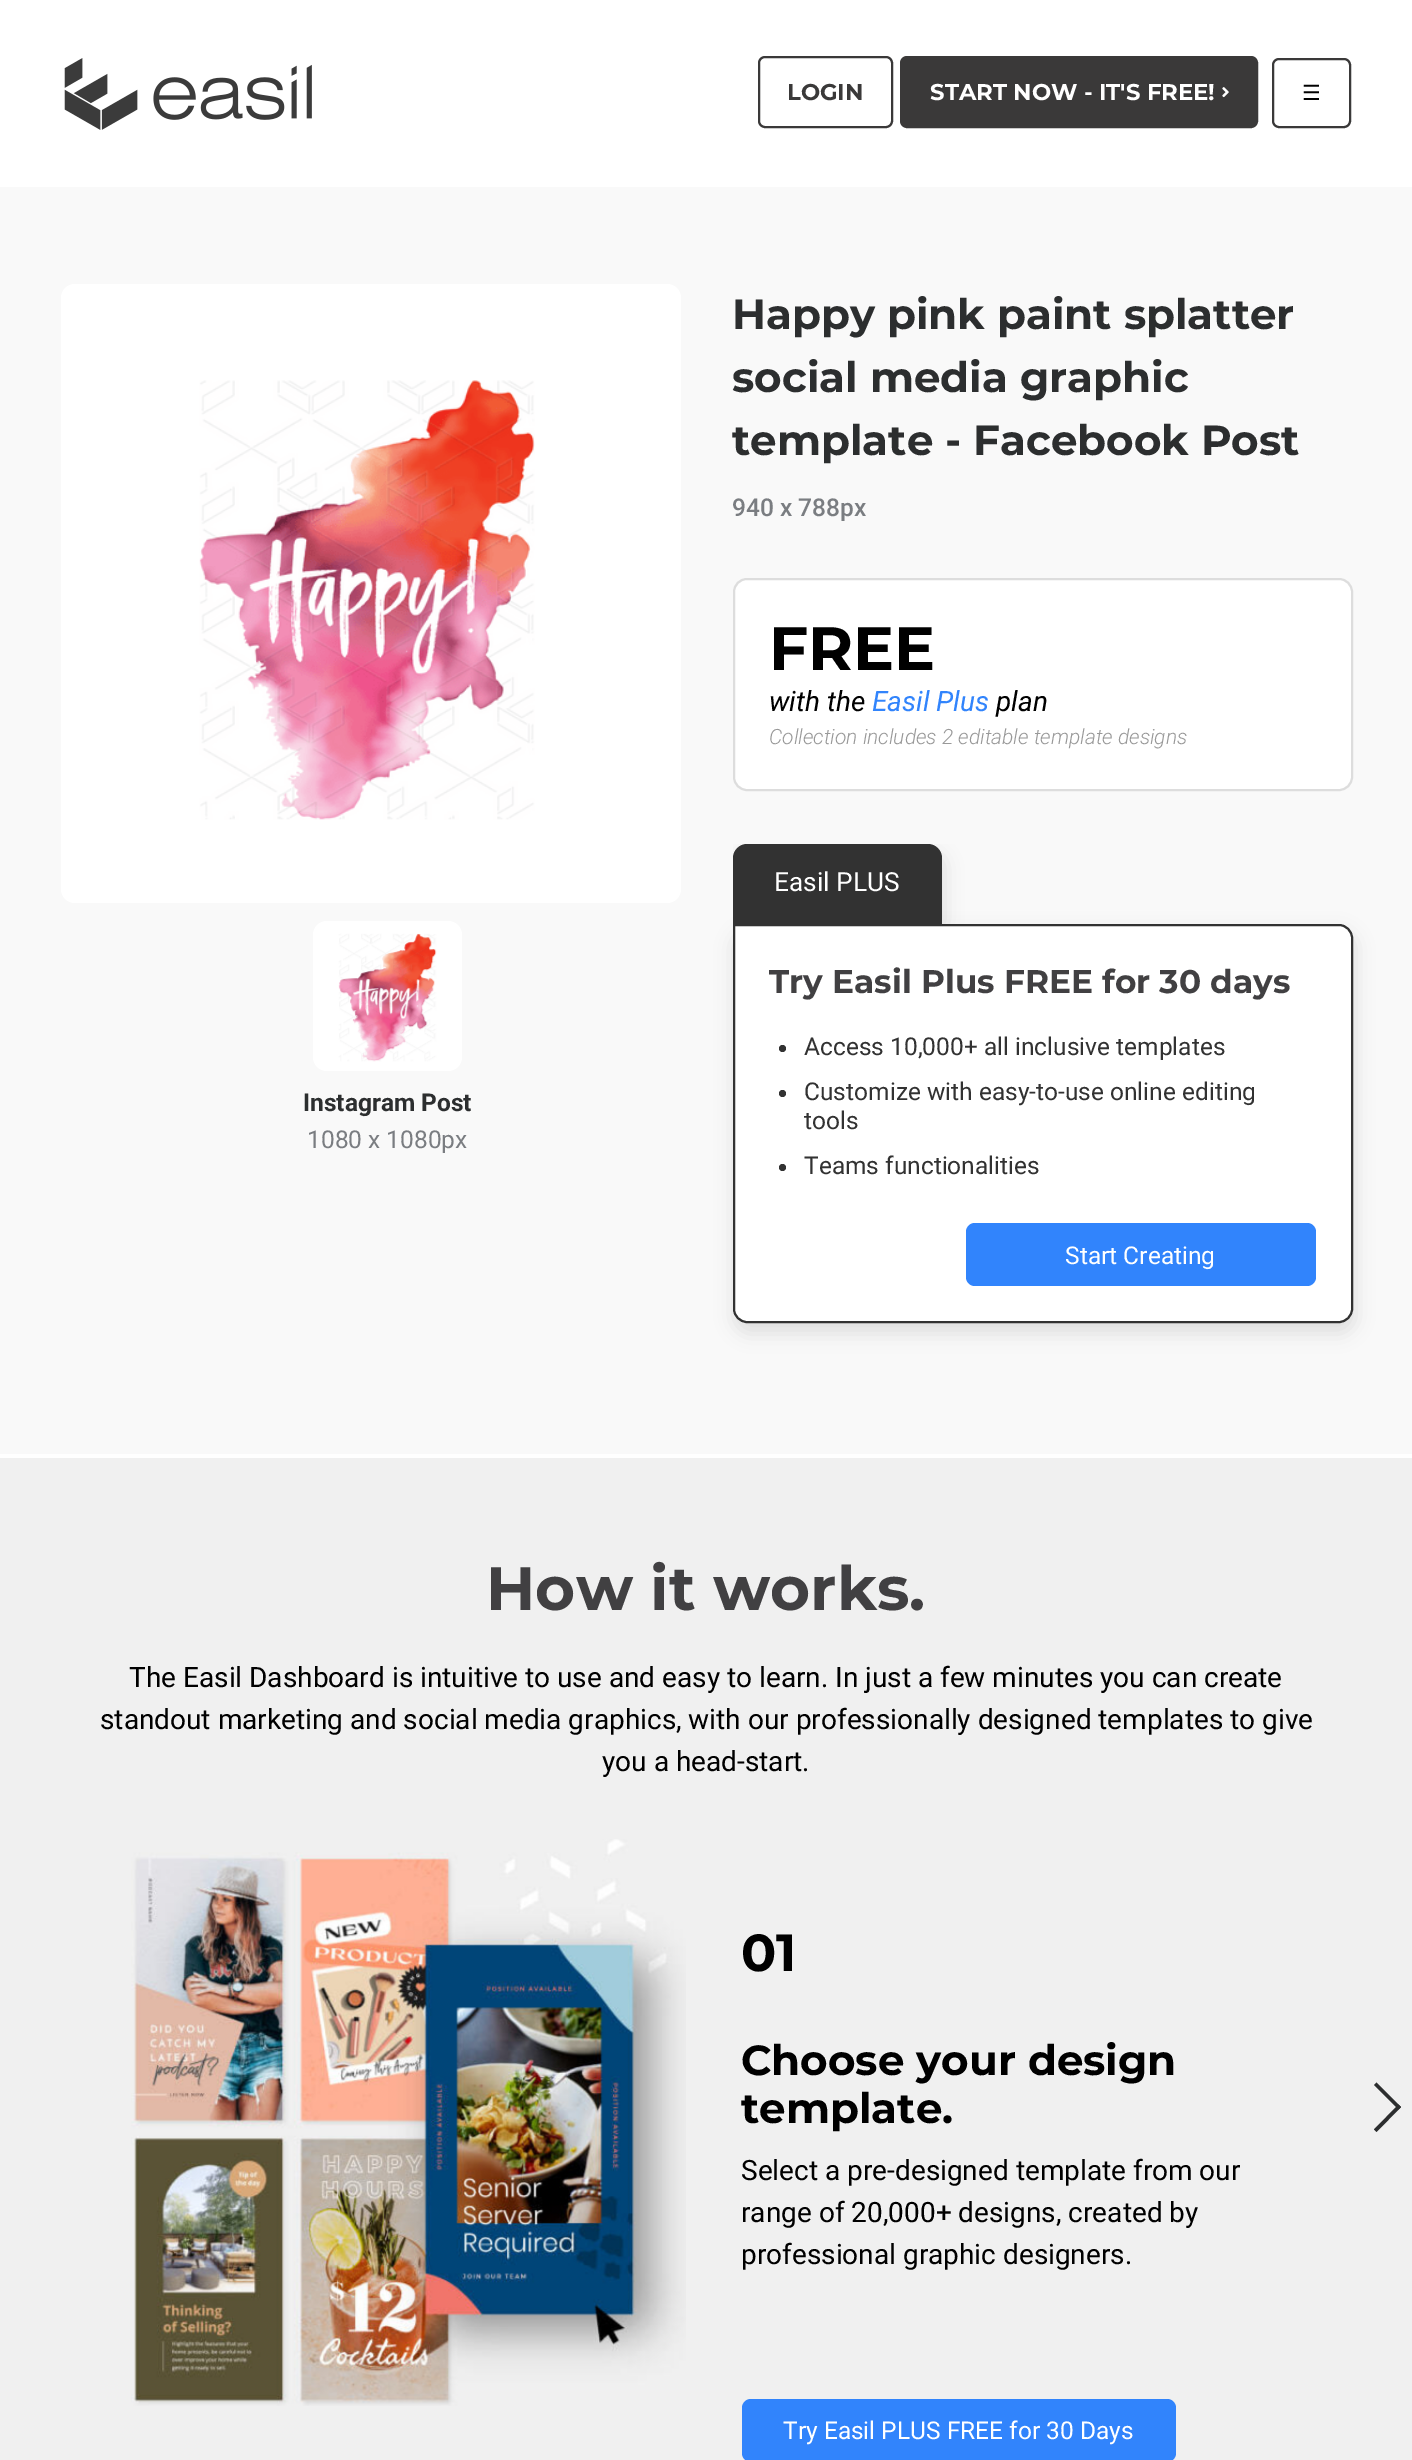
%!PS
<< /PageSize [1412 2460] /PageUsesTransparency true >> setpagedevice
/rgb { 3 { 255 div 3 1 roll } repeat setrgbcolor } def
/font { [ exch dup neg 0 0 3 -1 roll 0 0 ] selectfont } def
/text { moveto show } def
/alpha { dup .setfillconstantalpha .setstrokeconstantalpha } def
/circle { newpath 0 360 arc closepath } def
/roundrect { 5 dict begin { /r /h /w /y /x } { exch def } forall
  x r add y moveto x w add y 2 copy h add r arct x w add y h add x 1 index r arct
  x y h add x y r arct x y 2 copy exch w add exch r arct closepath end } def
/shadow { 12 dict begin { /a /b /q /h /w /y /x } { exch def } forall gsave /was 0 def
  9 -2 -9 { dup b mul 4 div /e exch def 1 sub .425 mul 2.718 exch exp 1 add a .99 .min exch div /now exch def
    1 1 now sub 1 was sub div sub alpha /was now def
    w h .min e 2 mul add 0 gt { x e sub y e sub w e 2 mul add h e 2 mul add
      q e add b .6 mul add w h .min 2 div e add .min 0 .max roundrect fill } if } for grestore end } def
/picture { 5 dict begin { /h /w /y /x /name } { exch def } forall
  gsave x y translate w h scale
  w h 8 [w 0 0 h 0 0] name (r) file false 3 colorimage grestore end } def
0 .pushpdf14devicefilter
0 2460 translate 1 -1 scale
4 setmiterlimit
255 255 255 rgb
0 0 1412 2460 rectfill
(img_01.rgb) 64 58 248 72 picture
58 57 57 rgb
2 setlinewidth
759 57 133 70 6 roundrect stroke
901 57 356 70 6 roundrect gsave fill grestore
stroke
(img_02.rgb) 1222 87 7 11 picture
1273 59 77 68 6 roundrect stroke
249 249 249 rgb
0 187 1412 1267 rectfill
255 255 255 rgb
61 284 620 619 14 roundrect fill
(img_03.rgb) 199 380 336 440 picture
313 921 149 150 14 roundrect fill
(img_04.rgb) 338 933 99 129 picture
734 579 618 211 13 roundrect gsave fill grestore
221 221 221 rgb
stroke
0 0 0 rgb
733 931 623 403 16 9 0.1 shadow
255 255 255 rgb
734 925 moveto 605 0 rlineto 7 0 13 6 13 13 rcurveto 0 371 rlineto 0 7 -6 13 -13 13 rcurveto -592 0 rlineto -7 0 -13 -6 -13 -13 rcurveto closepath gsave fill grestore
50 50 50 rgb
stroke
gsave
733 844 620 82 rectclip
0 0 0 rgb
733 851 212 85 16 9 0.1 shadow
grestore
747 844 moveto 181 0 rlineto 7.5 0 14 6.5 14 14 rcurveto 0 68 rlineto -209 0 rlineto 0 -68 rlineto 0 -7.5 6.5 -14 14 -14 rcurveto closepath fill
782.5 1048.5 3.5 circle fill
782.5 1093.5 3.5 circle fill
782.5 1167.5 3.5 circle fill
49 132 252 rgb
966 1223 350 63 9 roundrect fill
240 240 240 rgb
0 1458 1412 1002 rectfill
(img_05.rgb) 131 1839 555 567 picture
49 132 252 rgb
742 2399 434 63 9 roundrect fill
44 46 47 rgb
1374 2085 moveto 2.5 -2.5 rlineto 24.5 24.5 rlineto -2.5 2.5 rlineto closepath fill
1374 2129.5 moveto 24.5 -25 rlineto 2.5 2.5 rlineto -24.5 25 rlineto closepath fill
/Montserrat-Bold 22.75 font
58 57 57 rgb
(LOGIN) 787 100 text
255 255 255 rgb
(START NOW - IT'S FREE!) 930 100 text
/DejaVuSans-Regular 21 font
0 0 0 rgb
(☰) 1302 100 text
/Roboto-Bold 24.5 font
44 46 47 rgb
(Instagram Post) 303 1111 text
/Roboto-Regular 24.5 font
122 125 129 rgb
(1080 x 1080px) 307 1148 text
/Montserrat-Bold 42 font
44 46 47 rgb
(Happy pink paint splatter) 732 329 text
(social media graphic) 732 392 text
(template - Facebook Post) 732 455 text
/Roboto-Medium 24.5 font
122 125 129 rgb
(940 x 788px) 732 516 text
/Montserrat-Bold 61.25 font
0 0 0 rgb
(FREE) 769 670 text
/Roboto-Italic 28 font
(with the) 769 711 text
49 132 252 rgb
(Easil Plus) 872 711 text
0 0 0 rgb
(plan) 996 711 text
/Roboto-LightItalic 21 font
153 153 153 rgb
(Collection includes 2 editable template designs) 769 744 text
/Roboto-Regular 26.25 font
255 255 255 rgb
(Easil PLUS) 774 891 text
/Montserrat-Bold 32.75 font
65 64 66 rgb
(Try Easil Plus FREE for 30 days) 769 993 text
/Roboto-Regular 24.5 font
50 50 50 rgb
(Access 10,000+ all inclusive templates) 804 1055 text
(Customize with easy-to-use online editing) 804 1100 text
(tools) 804 1129 text
(Teams functionalities) 804 1174 text
255 255 255 rgb
(Start Creating) 1065 1264 text
/Montserrat-Bold 61.25 font
65 64 66 rgb
(How it works.) 486 1610 text
/Roboto-Regular 28 font
0 0 0 rgb
(The Easil Dashboard is intuitive to use and easy to learn. In just a few minutes you can create) 129 1687 text
(standout marketing and social media graphics, with our professionally designed templates to give) 100 1729 text
(you a head-start.) 602 1771 text
/Montserrat-Bold 52 font
(01) 741 1971 text
/Montserrat-Bold 42 font
(Choose your design) 741 2075 text
(template.) 741 2123 text
/Roboto-Regular 28 font
(Select a pre-designed template from our) 741 2180 text
(range of 20,000+ designs, created by) 741 2222 text
(professional graphic designers.) 741 2264 text
/Roboto-Regular 24.5 font
255 255 255 rgb
(Try Easil PLUS FREE for 30 Days) 783 2439 text
.poppdf14devicefilter showpage
